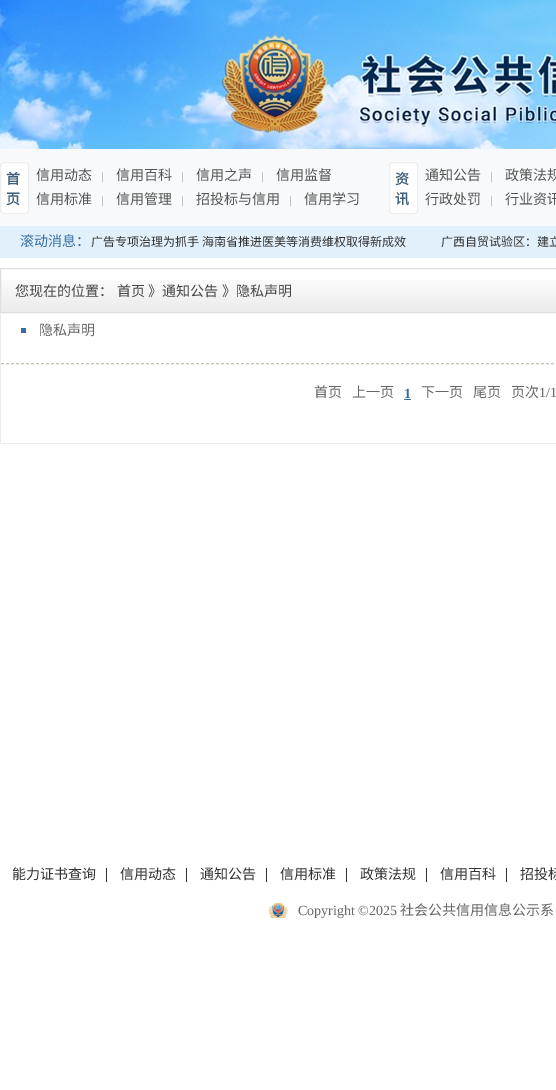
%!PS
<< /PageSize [556 1090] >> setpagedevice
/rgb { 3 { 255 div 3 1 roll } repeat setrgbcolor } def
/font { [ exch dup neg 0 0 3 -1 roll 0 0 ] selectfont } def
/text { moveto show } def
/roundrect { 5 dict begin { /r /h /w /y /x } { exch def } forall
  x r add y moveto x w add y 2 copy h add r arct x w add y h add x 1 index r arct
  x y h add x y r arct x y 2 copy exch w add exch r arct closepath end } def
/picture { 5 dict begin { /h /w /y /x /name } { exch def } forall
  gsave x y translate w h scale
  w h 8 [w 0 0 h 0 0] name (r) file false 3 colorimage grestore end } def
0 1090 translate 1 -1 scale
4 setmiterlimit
255 255 255 rgb
0 0 556 1090 rectfill
(img_01.rgb) 0 0 556 149 picture
248 249 250 rgb
0 149 556 77 rectfill
255 255 255 rgb
0.5 162.5 28 51 3.5 roundrect gsave fill grestore
238 238 238 rgb
stroke
255 255 255 rgb
389.5 162.5 28 51 3.5 roundrect gsave fill grestore
238 238 238 rgb
stroke
226 240 251 rgb
0 226 556 32 rectfill
(img_02.rgb) 1 280 555 32 picture
222 222 222 rgb
0.5 268.5 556 44 rectstroke
236 236 236 rgb
0 443 556 1 rectfill
0 313 1 131 rectfill
198 188 178 rgb
[3 2] 0 setdash
1 363.5 moveto 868 0 rlineto stroke
54 110 163 rgb
21 328 5 5 rectfill
404 399 7 1 rectfill
51 51 51 rgb
106 868 1 14 rectfill
186 868 1 14 rectfill
266 868 1 14 rectfill
346 868 1 14 rectfill
426 868 1 14 rectfill
506 868 1 14 rectfill
(img_03.rgb) 268 903 21 15 picture
/NotoSansCJKSC-Bold 14 font
64 95 123 rgb
(首) 6 184 text
(页) 6 204 text
/NotoSansCJKSC-Regular 14 font
85 85 85 rgb
(信用动态) 36 180 text
/LiberationSerif-Regular 12 font
153 153 153 rgb
(|) 101 180 text
/NotoSansCJKSC-Regular 14 font
85 85 85 rgb
(信用百科) 116 180 text
/LiberationSerif-Regular 12 font
153 153 153 rgb
(|) 181 180 text
/NotoSansCJKSC-Regular 14 font
85 85 85 rgb
(信用之声) 196 180 text
/LiberationSerif-Regular 12 font
153 153 153 rgb
(|) 261 180 text
/NotoSansCJKSC-Regular 14 font
85 85 85 rgb
(信用监督) 276 180 text
(信用标准) 36 204 text
/LiberationSerif-Regular 12 font
153 153 153 rgb
(|) 101 204 text
/NotoSansCJKSC-Regular 14 font
85 85 85 rgb
(信用管理) 116 204 text
/LiberationSerif-Regular 12 font
153 153 153 rgb
(|) 181 204 text
/NotoSansCJKSC-Regular 14 font
85 85 85 rgb
(招投标与信用) 196 204 text
/LiberationSerif-Regular 12 font
153 153 153 rgb
(|) 289 204 text
/NotoSansCJKSC-Regular 14 font
85 85 85 rgb
(信用学习) 304 204 text
/NotoSansCJKSC-Bold 14 font
64 95 123 rgb
(资) 395 184 text
(讯) 395 204 text
/NotoSansCJKSC-Regular 14 font
85 85 85 rgb
(通知公告) 425 180 text
/LiberationSerif-Regular 12 font
153 153 153 rgb
(|) 490 180 text
/NotoSansCJKSC-Regular 14 font
85 85 85 rgb
(政策法规) 505 180 text
(行政处罚) 425 204 text
/LiberationSerif-Regular 12 font
153 153 153 rgb
(|) 490 204 text
/NotoSansCJKSC-Regular 14 font
85 85 85 rgb
(行业资讯) 505 204 text
54 110 163 rgb
(滚动消息：) 20 246 text
/NotoSansCJKSC-Regular 12 font
51 51 51 rgb
(广告专项治理为抓手 海南省推进医美等消费维权取得新成效) 91 246 text
(广西自贸试验区：建立) 441 246 text
/NotoSansCJKSC-Regular 14 font
71 69 69 rgb
(您现在的位置：) 15 296 text
(首页) 117 296 text
(》通知公告) 148 296 text
(》隐私声明) 222 296 text
102 102 102 rgb
(隐私声明) 39 335 text
(首页) 314 397 text
(上一页) 352 397 text
/LiberationSerif-Bold 14 font
54 110 163 rgb
(1) 404 398 text
/NotoSansCJKSC-Regular 14 font
102 102 102 rgb
(下一页) 421 397 text
(尾页) 473 397 text
(页次) 511 397 text
/LiberationSerif-Regular 14 font
(1/1) 539 397 text
/NotoSansCJKSC-Regular 14 font
51 51 51 rgb
(能力证书查询) 12 879 text
(信用动态) 120 879 text
(通知公告) 200 879 text
(信用标准) 280 879 text
(政策法规) 360 879 text
(信用百科) 440 879 text
(招投标) 520 879 text
/LiberationSerif-Regular 14 font
102 102 102 rgb
(Copyright ©2025) 298 915 text
/NotoSansCJKSC-Regular 14 font
(社会公共信用信息公示系) 400 915 text
showpage
